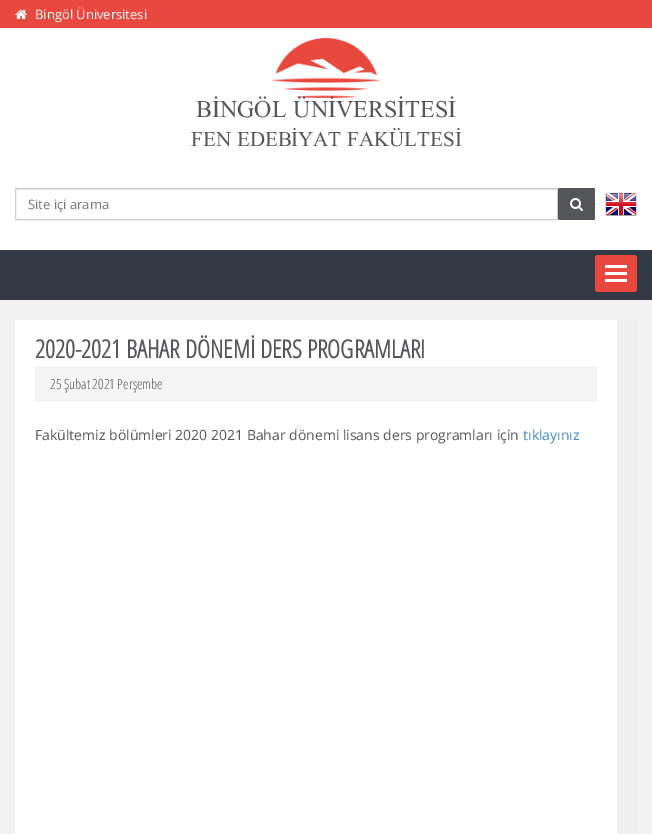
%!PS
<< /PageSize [652 834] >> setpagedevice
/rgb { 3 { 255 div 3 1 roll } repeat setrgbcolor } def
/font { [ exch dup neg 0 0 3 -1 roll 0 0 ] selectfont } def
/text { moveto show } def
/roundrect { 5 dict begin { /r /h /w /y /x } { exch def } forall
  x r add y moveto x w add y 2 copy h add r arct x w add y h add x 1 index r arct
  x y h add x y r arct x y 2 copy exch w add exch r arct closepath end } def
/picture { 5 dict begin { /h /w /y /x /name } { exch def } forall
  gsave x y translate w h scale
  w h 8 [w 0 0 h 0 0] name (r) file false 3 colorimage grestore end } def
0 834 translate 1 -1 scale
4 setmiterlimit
255 255 255 rgb
0 0 652 834 rectfill
233 72 62 rgb
0 0 652 28 rectfill
(img_01.rgb) 15 9 12 10 picture
(img_02.rgb) 271 38 110 60 picture
236 236 236 rgb
16 189 541 1 rectfill
204 204 204 rgb
15.5 188.5 542 31 rectstroke
85 86 90 rgb
558 188 37 32 2 roundrect fill
(img_03.rgb) 570 198 13 13 picture
(img_04.rgb) 605 192 32 24 picture
50 58 69 rgb
0 250 652 50 rectfill
233 72 62 rgb
595 255 42 37 3 roundrect fill
255 255 255 rgb
605 265 22 3 1 roundrect fill
605 272 22 3 1 roundrect fill
605 279 22 3 1 roundrect fill
242 242 242 rgb
0 300 652 534 rectfill
255 255 255 rgb
15 320 602 514 rectfill
239 239 239 rgb
617 320 20 514 rectfill
245 245 245 rgb
35 366 562 36 rectfill
/OpenSans-Regular 13 font
255 255 255 rgb
(Bingöl Üniversitesi) 35 19 text
/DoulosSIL-Regular 24 font
85 86 90 rgb
(BİNGÖL ÜNİVERSİTESİ) 196 117 text
/DoulosSIL-Regular 21 font
(FEN EDEBİYAT FAKÜLTESİ) 191 146 text
/OpenSans-Regular 13 font
119 119 119 rgb
(Site içi arama) 28 209 text
/OpenSansCondensed-Bold 25 font
85 86 90 rgb
(2020-2021 BAHAR DÖNEMİ DERS PROGRAMLARI) 35 358 text
/OpenSansCondensed-Light 14 font
(25 Şubat 2021 Perşembe) 50 389 text
/OpenSans-Regular 14 font
(Fakültemiz bölümleri 2020 2021 Bahar dönemi lisans ders programları için) 35 440 text
66 139 202 rgb
(tıklayınız) 523 440 text
showpage
